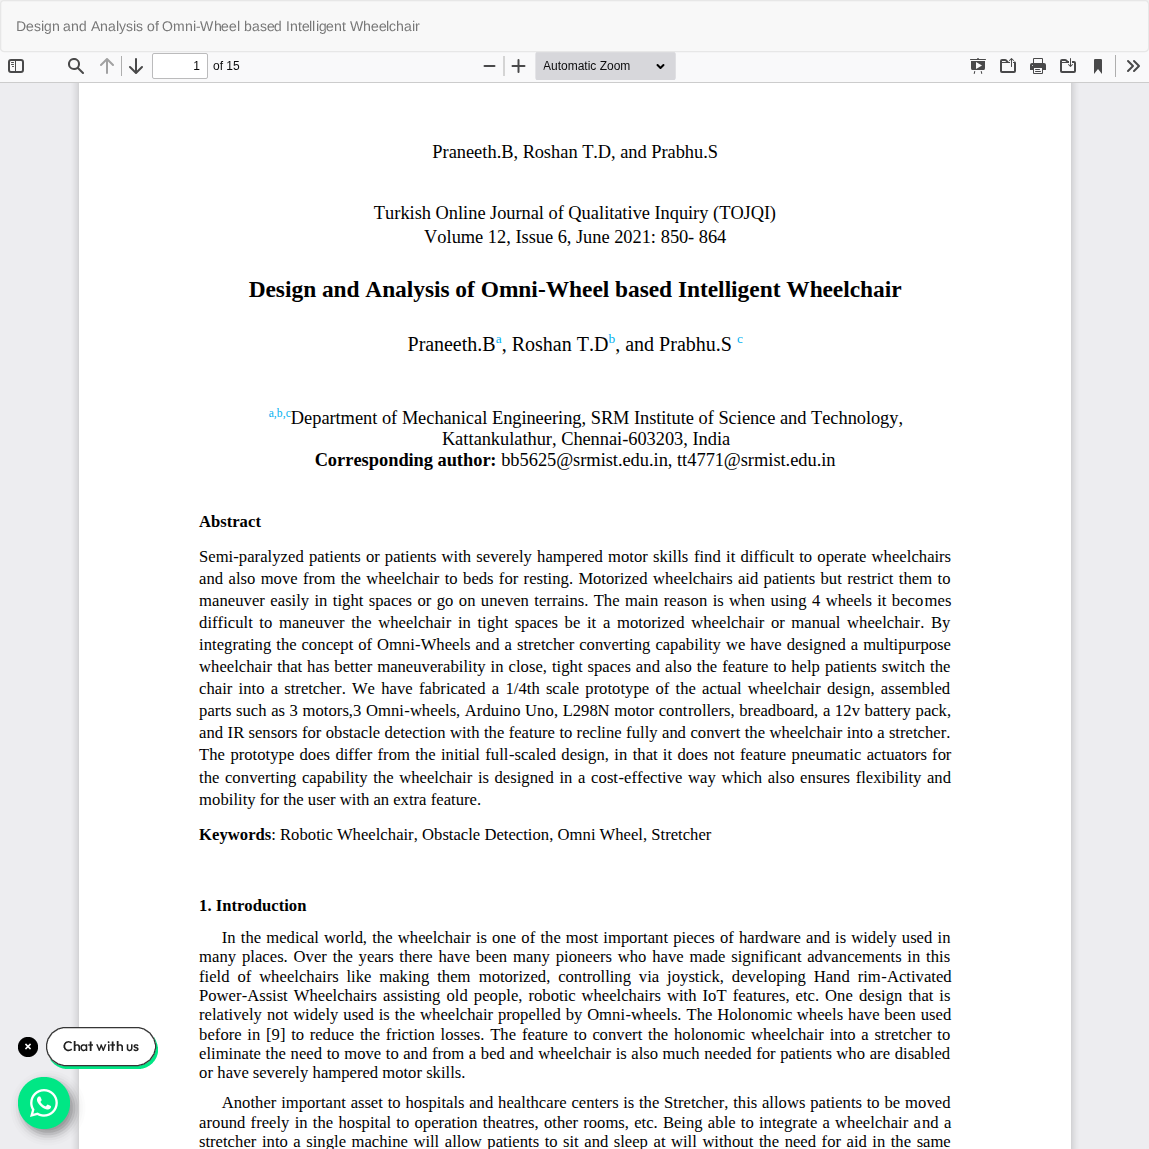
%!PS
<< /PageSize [1149 1149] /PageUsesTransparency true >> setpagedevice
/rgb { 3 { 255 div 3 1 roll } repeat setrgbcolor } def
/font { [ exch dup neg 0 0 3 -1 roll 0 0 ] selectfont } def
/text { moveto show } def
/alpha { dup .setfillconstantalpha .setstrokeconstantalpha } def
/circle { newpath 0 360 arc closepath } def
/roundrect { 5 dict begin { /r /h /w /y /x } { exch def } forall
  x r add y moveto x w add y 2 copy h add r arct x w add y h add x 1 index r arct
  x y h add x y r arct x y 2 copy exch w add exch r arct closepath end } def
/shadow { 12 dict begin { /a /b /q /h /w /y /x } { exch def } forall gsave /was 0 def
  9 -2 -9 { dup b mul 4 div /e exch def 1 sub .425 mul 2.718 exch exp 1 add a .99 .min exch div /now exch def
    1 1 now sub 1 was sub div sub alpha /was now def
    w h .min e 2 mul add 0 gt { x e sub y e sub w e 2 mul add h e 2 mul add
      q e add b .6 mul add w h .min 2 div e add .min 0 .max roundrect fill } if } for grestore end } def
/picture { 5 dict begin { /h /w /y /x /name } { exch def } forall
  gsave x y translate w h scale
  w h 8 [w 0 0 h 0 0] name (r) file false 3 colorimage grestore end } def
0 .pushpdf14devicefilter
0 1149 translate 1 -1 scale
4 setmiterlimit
241 241 241 rgb
0 0 1149 1149 rectfill
(img_01.rgb) 0 50 1149 1099 picture
248 248 248 rgb
0.5 0.5 1148 51 3.5 roundrect gsave fill grestore
231 231 231 rgb
stroke
0 0 0 rgb
28 1047 10 circle fill
255 255 255 rgb
1.3 setlinewidth
25.5 1044 moveto 5 5 rlineto 25.5 1049 moveto 5 -5 rlineto stroke
0 0 0 rgb
22 1082 52 52 26 5 0.4 shadow
0 231 133 rgb
50 1059 moveto 4 6 10 10 18 10 rcurveto 70 0 rlineto 11 0 20 -9 20 -19 rcurveto 0 -5 -2 -9 -4 -13 rcurveto 1 3 2 6 2 9 rcurveto 0 11 -9 20 -20 20 rcurveto -70 0 rlineto -7 0 -12 -3 -16 -7 rcurveto closepath fill
255 255 255 rgb
46.5 1027.5 109 38 19 roundrect gsave fill grestore
54 54 54 rgb
1 setlinewidth
stroke
0 231 133 rgb
44 1103 26 circle fill
(img_02.rgb) 30 1089 28 28 picture
/LiberationSans-Regular 14 font
119 119 119 rgb
(Design and Analysis of Omni-Wheel based Intelligent Wheelchair) 16 31 text
/Outfit-Medium 14 font
32 32 32 rgb
(Chat with us) 63 1051 text
.poppdf14devicefilter showpage
